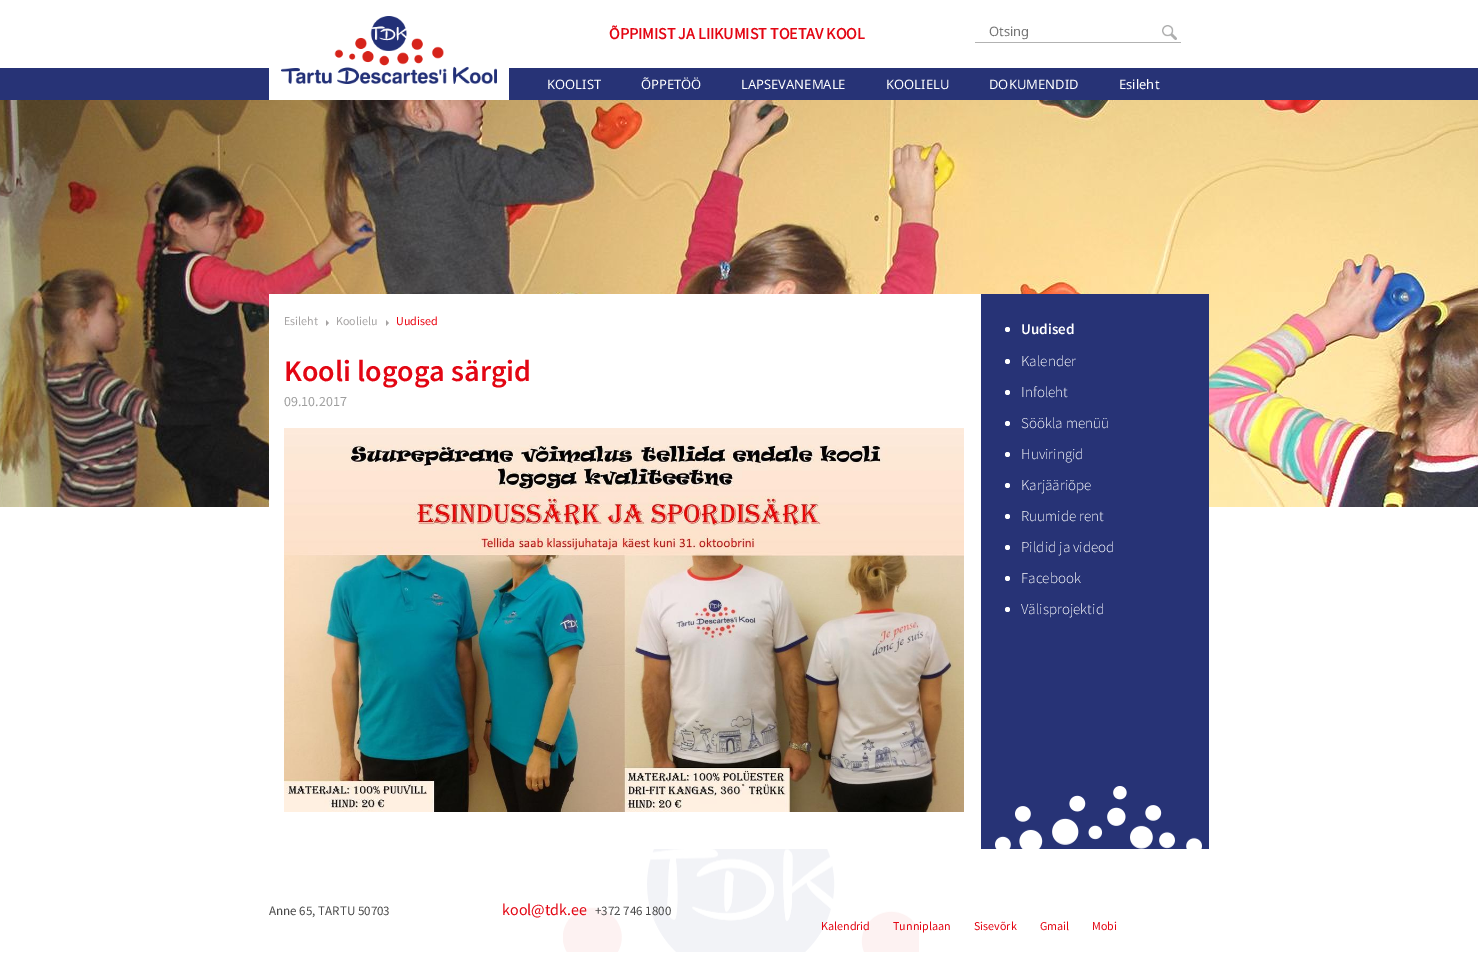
%!PS
<< /PageSize [1478 969] >> setpagedevice
/rgb { 3 { 255 div 3 1 roll } repeat setrgbcolor } def
/font { [ exch dup neg 0 0 3 -1 roll 0 0 ] selectfont } def
/text { moveto show } def
/circle { newpath 0 360 arc closepath } def
/picture { 5 dict begin { /h /w /y /x /name } { exch def } forall
  gsave x y translate w h scale
  w h 8 [w 0 0 h 0 0] name (r) file false 3 colorimage grestore end } def
0 969 translate 1 -1 scale
4 setmiterlimit
255 255 255 rgb
0 0 1478 969 rectfill
39 51 118 rgb
0 68 1478 32 rectfill
255 255 255 rgb
269 68 240 32 rectfill
(img_01.rgb) 281 16 216 68 picture
178 178 178 rgb
975 42 206 1 rectfill
(img_02.rgb) 1162 25 15 15 picture
(img_03.rgb) 0 100 1478 407 picture
39 51 118 rgb
981 294 228 555 rectfill
(img_04.rgb) 995 786 207 63 picture
255 255 255 rgb
269 294 712 213 rectfill
167 164 164 rgb
326 326 moveto 0 -6 rlineto 3 3 rlineto closepath fill
386 326 moveto 0 -6 rlineto 3 3 rlineto closepath fill
(img_05.rgb) 284 428 680 384 picture
255 255 255 rgb
1007.5 329.5 2.5 circle fill
1007.5 361.5 2.5 circle fill
1007.5 392.5 2.5 circle fill
1007.5 423.5 2.5 circle fill
1007.5 454.5 2.5 circle fill
1007.5 485.5 2.5 circle fill
1007.5 516.5 2.5 circle fill
1007.5 547.5 2.5 circle fill
1007.5 578.5 2.5 circle fill
1007.5 609.5 2.5 circle fill
(img_06.rgb) 563 849 356 103 picture
/SourceSansPro-Bold 16 font
227 6 19 rgb
(ÕPPIMIST JA LIIKUMIST TOETAV KOOL) 609 39 text
/NotoSans-Regular 13 font
117 117 117 rgb
(Otsing) 989 36 text
255 255 255 rgb
(KOOLIST) 547 89 text
(ÕPPETÖÖ) 641 89 text
(LAPSEVANEMALE) 741 89 text
(KOOLIELU) 886 89 text
(DOKUMENDID) 989 89 text
(Esileht) 1119 89 text
/SourceSansPro-Regular 12 font
167 164 164 rgb
(Esileht) 284 325 text
(Koolielu) 336 325 text
235 6 19 rgb
(Uudised) 396 325 text
/SourceSansPro-SemiBold 30 font
227 6 19 rgb
(Kooli logoga särgid) 284 381 text
/SourceSansPro-Regular 14 font
158 158 158 rgb
(09.10.2017) 284 406 text
/SourceSansPro-SemiBold 15 font
255 255 255 rgb
(Uudised) 1021 334 text
/SourceSansPro-Light 15 font
(Kalender) 1021 366 text
(Infoleht) 1021 397 text
(Söökla menüü) 1021 428 text
(Huviringid) 1021 459 text
(Karjääriõpe) 1021 490 text
(Ruumide rent) 1021 521 text
(Pildid ja videod) 1021 552 text
(Facebook) 1021 583 text
(Välisprojektid) 1021 614 text
/SourceSansPro-Regular 13 font
73 73 73 rgb
(Anne 65, TARTU 50703) 269 915 text
/SourceSansPro-Regular 16 font
227 6 19 rgb
(kool@tdk.ee) 502 915 text
/SourceSansPro-Regular 13 font
73 73 73 rgb
(+372 746 1800) 595 915 text
/SourceSansPro-Regular 12 font
227 6 19 rgb
(Kalendrid) 821 930 text
(Tunniplaan) 893 930 text
(Sisevõrk) 974 930 text
(Gmail) 1040 930 text
(Mobi) 1092 930 text
showpage
